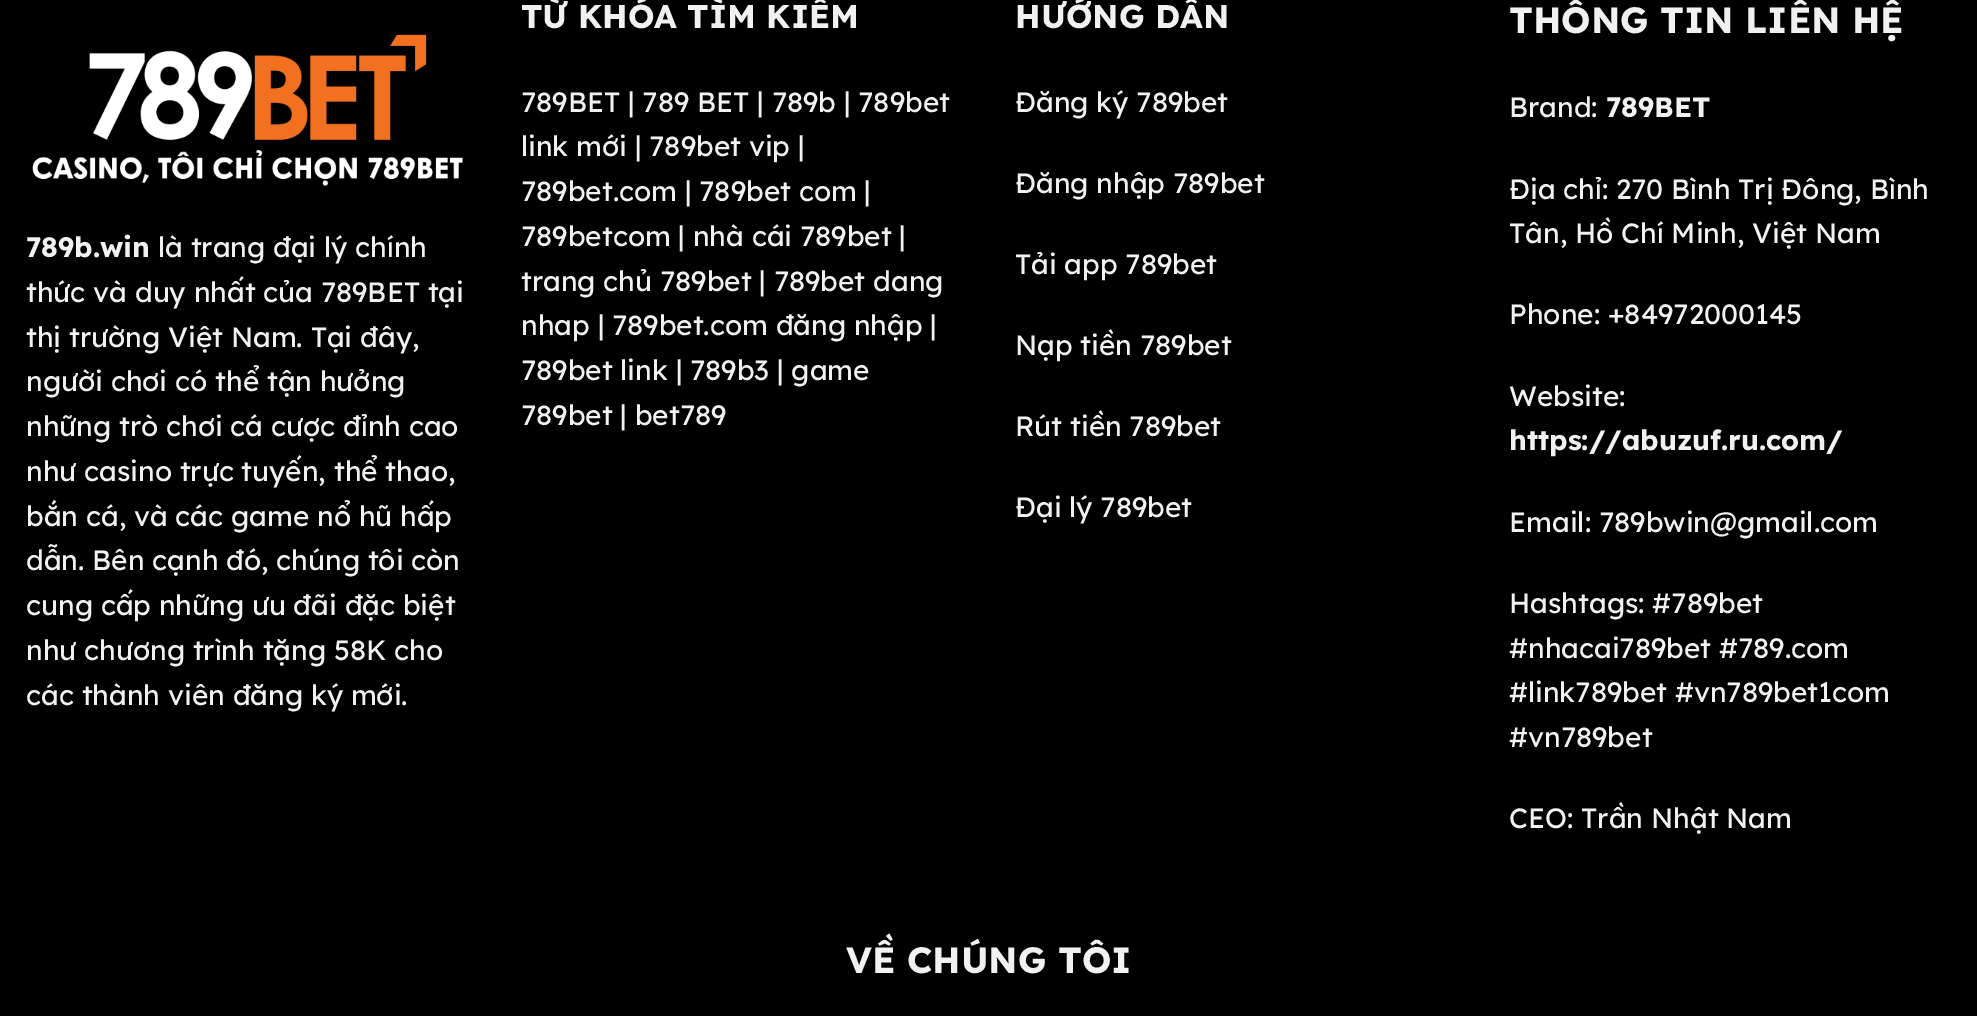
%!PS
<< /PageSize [1977 1016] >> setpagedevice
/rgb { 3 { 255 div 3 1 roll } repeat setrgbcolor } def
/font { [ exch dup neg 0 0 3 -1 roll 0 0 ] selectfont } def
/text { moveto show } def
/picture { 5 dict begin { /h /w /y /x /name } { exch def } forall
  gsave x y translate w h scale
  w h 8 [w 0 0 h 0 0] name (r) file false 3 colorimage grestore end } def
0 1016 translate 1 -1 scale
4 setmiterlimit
0 0 0 rgb
0 0 1977 1016 rectfill
(img_01.rgb) 32 34 431 152 picture
/LexendDeca-Bold 28 font
241 241 241 rgb
(789b.win) 26 257 text
/LexendDeca-Regular 28 font
(là trang đại lý chính) 158 257 text
(thức và duy nhất của 789BET tại) 26 302 text
(thị trường Việt Nam. Tại đây,) 26 347 text
(người chơi có thể tận hưởng) 26 391 text
(những trò chơi cá cược đỉnh cao) 26 436 text
(như casino trực tuyến, thể thao,) 26 481 text
(bắn cá, và các game nổ hũ hấp) 26 526 text
(dẫn. Bên cạnh đó, chúng tôi còn) 26 570 text
(cung cấp những ưu đãi đặc biệt) 26 615 text
(như chương trình tặng 58K cho) 26 660 text
(các thành viên đăng ký mới.) 26 705 text
/LexendDeca-Bold 32.75 font
(TỪ KHÓA TÌM KIẾM) 521 28 text
/LexendDeca-Regular 28 font
(789BET | 789 BET | 789b | 789bet) 521 112 text
(link mới | 789bet vip |) 521 156 text
(789bet.com | 789bet com |) 521 201 text
(789betcom | nhà cái 789bet |) 521 246 text
(trang chủ 789bet | 789bet dang) 521 291 text
(nhap | 789bet.com đăng nhập |) 521 335 text
(789bet link | 789b3 | game) 521 380 text
(789bet | bet789) 521 425 text
/LexendDeca-Bold 32.75 font
(HƯỚNG DẪN) 1015 28 text
/LexendDeca-Regular 28 font
(Đăng ký 789bet) 1015 112 text
(Đăng nhập 789bet) 1015 193 text
(Tải app 789bet) 1015 274 text
(Nạp tiền 789bet) 1015 355 text
(Rút tiền 789bet) 1015 436 text
(Đại lý 789bet) 1015 517 text
/LexendDeca-Bold 36.4 font
(THÔNG TIN LIÊN HỆ) 1509 33 text
/LexendDeca-Regular 28 font
(Brand:) 1509 117 text
/LexendDeca-Bold 28 font
(789BET) 1606 117 text
/LexendDeca-Regular 28 font
(Địa chỉ: 270 Bình Trị Đông, Bình) 1509 199 text
(Tân, Hồ Chí Minh, Việt Nam) 1509 243 text
(Phone: +84972000145) 1509 324 text
(Website:) 1509 406 text
/LexendDeca-Bold 28 font
(https://abuzuf.ru.com/) 1509 450 text
/LexendDeca-Regular 28 font
(Email: 789bwin@gmail.com) 1509 532 text
(Hashtags: #789bet) 1509 613 text
(#nhacai789bet #789.com) 1509 658 text
(#link789bet #vn789bet1com) 1509 702 text
(#vn789bet) 1509 747 text
(CEO: Trần Nhật Nam) 1509 828 text
/LexendDeca-Bold 36.4 font
(VỀ CHÚNG TÔI) 846 973 text
showpage
